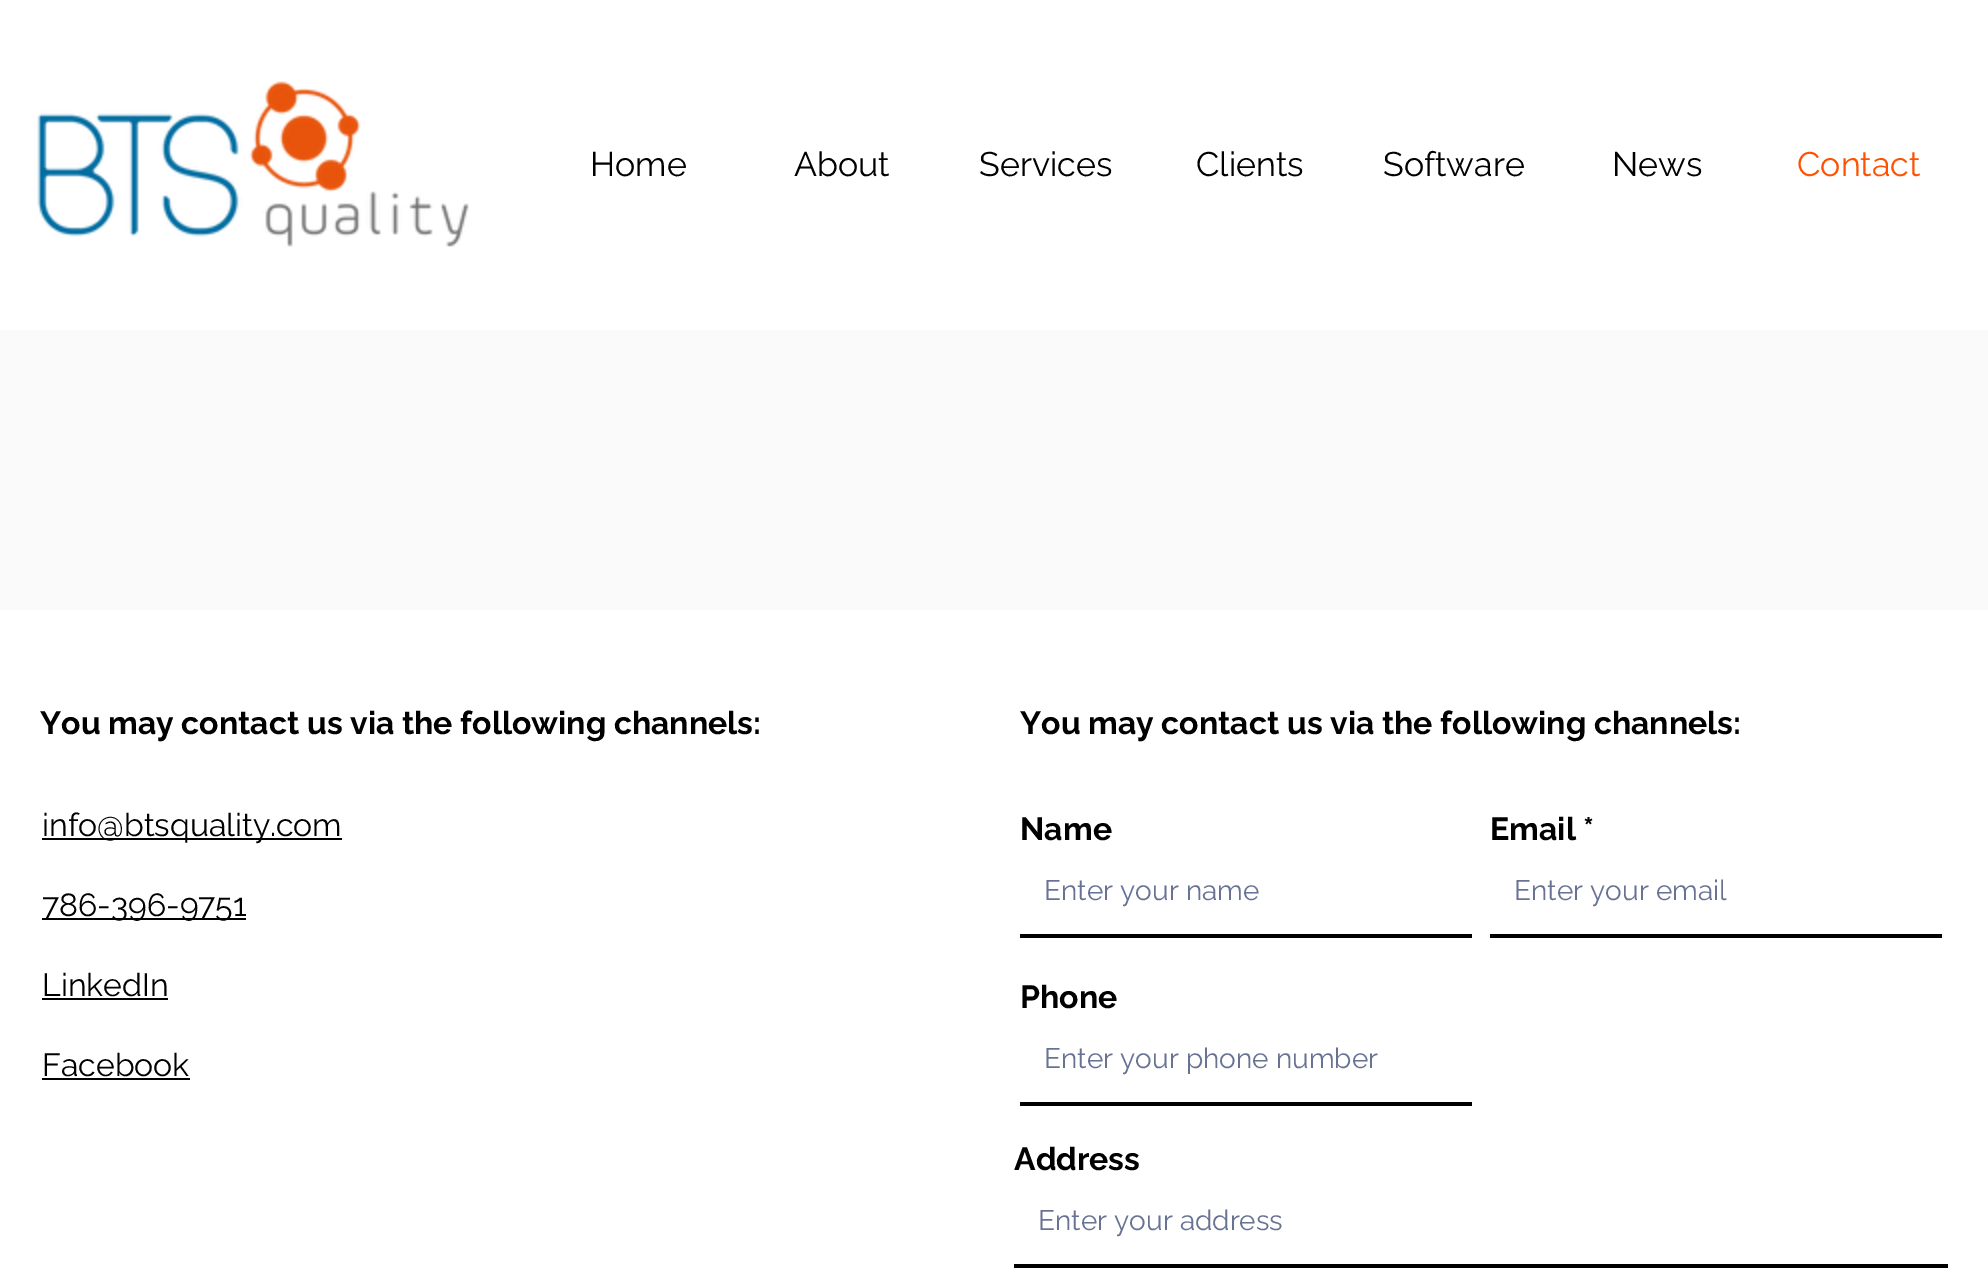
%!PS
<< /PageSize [1988 1286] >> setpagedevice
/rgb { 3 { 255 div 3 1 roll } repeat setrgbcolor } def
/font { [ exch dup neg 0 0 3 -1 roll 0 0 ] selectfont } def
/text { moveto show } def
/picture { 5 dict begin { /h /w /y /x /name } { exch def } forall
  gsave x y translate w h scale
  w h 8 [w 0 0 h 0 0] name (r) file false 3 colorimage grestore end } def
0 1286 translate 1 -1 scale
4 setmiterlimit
255 255 255 rgb
0 0 1988 1286 rectfill
(img_01.rgb) 37 81 432 166 picture
250 250 250 rgb
0 330 1988 280 rectfill
0 0 0 rgb
42 838 300 2 rectfill
42 918 204 2 rectfill
42 998 126 2 rectfill
42 1078 148 2 rectfill
1020 934 452 4 rectfill
1490 934 452 4 rectfill
1020 1102 452 4 rectfill
1014 1264 934 4 rectfill
/Raleway-Regular 34 font
(Home) 590 176 text
(About) 794 176 text
(Services) 979 176 text
(Clients) 1196 176 text
(Software) 1383 176 text
(News) 1612 176 text
255 81 0 rgb
(Contact) 1797 176 text
/Raleway-Bold 32 font
0 0 0 rgb
(You may contact us via the following channels:) 40 734 text
/Raleway-Regular 32 font
(info@btsquality.com) 42 836 text
(786-396-9751) 42 916 text
(LinkedIn) 42 996 text
(Facebook) 42 1076 text
/Raleway-Bold 32 font
(You may contact us via the following channels:) 1020 734 text
(Name) 1020 840 text
/Raleway-Regular 28 font
104 115 147 rgb
(Enter your name) 1044 900 text
/Raleway-Bold 32 font
0 0 0 rgb
(Email *) 1490 840 text
/Raleway-Regular 28 font
104 115 147 rgb
(Enter your email) 1514 900 text
/Raleway-Bold 32 font
0 0 0 rgb
(Phone) 1020 1008 text
/Raleway-Regular 28 font
104 115 147 rgb
(Enter your phone number) 1044 1068 text
/Raleway-Bold 32 font
0 0 0 rgb
(Address) 1014 1170 text
/Raleway-Regular 28 font
104 115 147 rgb
(Enter your address) 1038 1230 text
showpage
